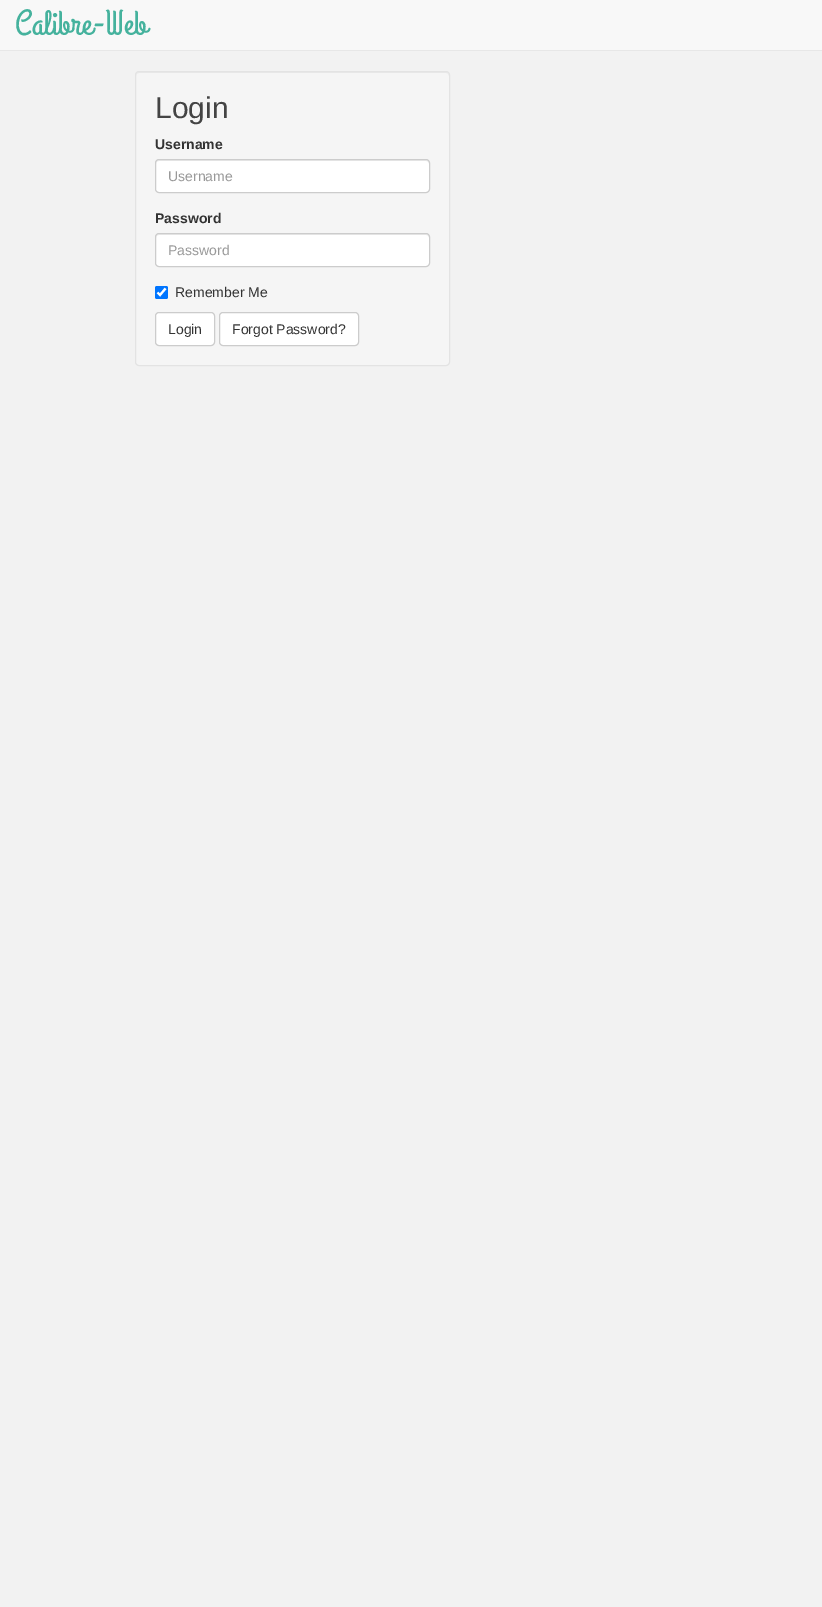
%!PS
<< /PageSize [822 1607] >> setpagedevice
/rgb { 3 { 255 div 3 1 roll } repeat setrgbcolor } def
/font { [ exch dup neg 0 0 3 -1 roll 0 0 ] selectfont } def
/text { moveto show } def
/roundrect { 5 dict begin { /r /h /w /y /x } { exch def } forall
  x r add y moveto x w add y 2 copy h add r arct x w add y h add x 1 index r arct
  x y h add x y r arct x y 2 copy exch w add exch r arct closepath end } def
0 1607 translate 1 -1 scale
4 setmiterlimit
242 242 242 rgb
0 0 822 1607 rectfill
248 248 248 rgb
0 0 822 50 rectfill
231 231 231 rgb
0 50 822 1 rectfill
245 245 245 rgb
135 71 315 295 4 roundrect fill
233 233 233 rgb
139 73 moveto 307 0 rlineto 2 0 3 1 3 3 rcurveto -1 -3 rlineto -1 -1 rlineto -308 0 rlineto -2 0 -3 2 -3 4 rcurveto 0 -2 1 -3 3 -3 rcurveto closepath fill
227 227 227 rgb
135.5 71.5 314 294 3.5 roundrect stroke
255 255 255 rgb
155 159 275 34 4 roundrect fill
236 236 236 rgb
159 161 moveto 267 0 rlineto 2 0 3 1 3 3 rcurveto 0 -1 rlineto 0 -2 -1 -3 -3 -3 rcurveto -267 0 rlineto -2 0 -3 1 -3 3 rcurveto 0 1 rlineto 0 -2 1 -3 3 -3 rcurveto closepath fill
204 204 204 rgb
155.5 159.5 274 33 3.5 roundrect stroke
255 255 255 rgb
155 233 275 34 4 roundrect fill
236 236 236 rgb
159 235 moveto 267 0 rlineto 2 0 3 1 3 3 rcurveto 0 -1 rlineto 0 -2 -1 -3 -3 -3 rcurveto -267 0 rlineto -2 0 -3 1 -3 3 rcurveto 0 1 rlineto 0 -2 1 -3 3 -3 rcurveto closepath fill
204 204 204 rgb
155.5 233.5 274 33 3.5 roundrect stroke
0 117 255 rgb
155 286 13 13 2 roundrect fill
255 255 255 rgb
2.1 setlinewidth
157.5 292.5 moveto 2.5 2.5 rlineto 5.5 -6.5 rlineto stroke
155.5 312.5 59 33 3.5 roundrect gsave fill grestore
204 204 204 rgb
1 setlinewidth
stroke
255 255 255 rgb
219.5 312.5 139 33 3.5 roundrect gsave fill grestore
204 204 204 rgb
stroke
/GrandHotel-Regular 35 font
69 178 157 rgb
(Calibre-Web) 15 34 text
/LiberationSans-Regular 30 font
68 68 68 rgb
(Login) 155 118 text
/LiberationSans-Bold 14 font
51 51 51 rgb
(Username) 155 149 text
/LiberationSans-Regular 14 font
153 153 153 rgb
(Username) 168 181 text
/LiberationSans-Bold 14 font
51 51 51 rgb
(Password) 155 223 text
/LiberationSans-Regular 14 font
153 153 153 rgb
(Password) 168 255 text
51 51 51 rgb
(Remember Me) 175 297 text
(Login) 168 334 text
(Forgot Password?) 232 334 text
showpage
